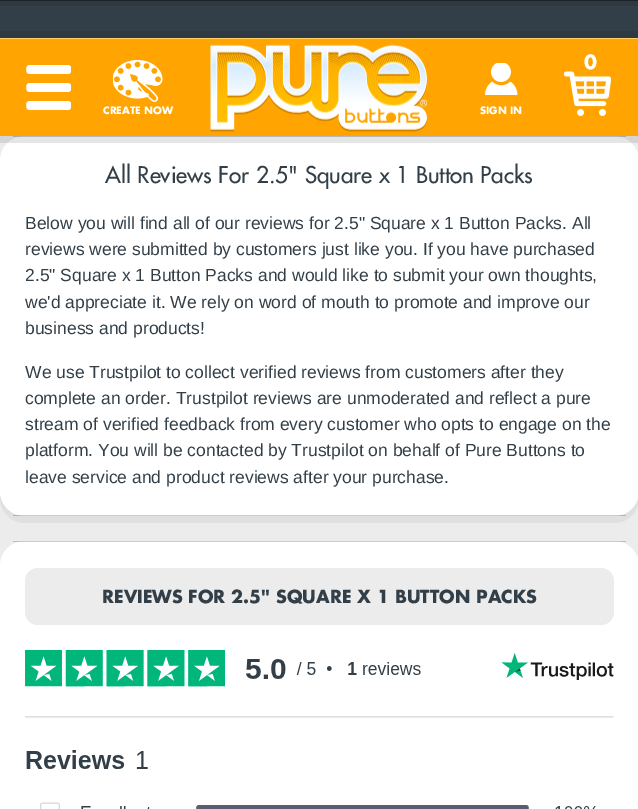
%!PS
<< /PageSize [638 809] /PageUsesTransparency true >> setpagedevice
/rgb { 3 { 255 div 3 1 roll } repeat setrgbcolor } def
/font { [ exch dup neg 0 0 3 -1 roll 0 0 ] selectfont } def
/text { moveto show } def
/alpha { dup .setfillconstantalpha .setstrokeconstantalpha } def
/roundrect { 5 dict begin { /r /h /w /y /x } { exch def } forall
  x r add y moveto x w add y 2 copy h add r arct x w add y h add x 1 index r arct
  x y h add x y r arct x y 2 copy exch w add exch r arct closepath end } def
/picture { 5 dict begin { /h /w /y /x /name } { exch def } forall
  gsave x y translate w h scale
  w h 8 [w 0 0 h 0 0] name (r) file false 3 colorimage grestore end } def
0 .pushpdf14devicefilter
0 809 translate 1 -1 scale
4 setmiterlimit
236 236 236 rgb
0 0 638 809 rectfill
51 63 72 rgb
0 6 638 25 rectfill
46 57 65 rgb
0 31 638 7 rectfill
0 1 638 5 rectfill
28 34 39 rgb
0 0 638 1 rectfill
255 209 99 rgb
0 38 638 1 rectfill
224 224 224 rgb
0 491 moveto 0 7 rlineto 0 14 11 25 25 25 rcurveto 589 0 rlineto 14 0 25 -11 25 -25 rcurveto 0 -334 rlineto 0 327 rlineto 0 14 -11 25 -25 25 rcurveto -589 0 rlineto -14 0 -25 -11 -25 -25 rcurveto closepath fill
255 255 255 rgb
0 136 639 380 25 roundrect fill
0.2 alpha
0 0 0 rgb
13 136 613 1 rectfill
0.1 alpha
0 136 moveto 0 7 rlineto 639 0 rlineto 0 -98 rlineto 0 91 rlineto closepath fill
1 alpha
255 164 0 rgb
0 39 638 97 rectfill
(img_01.rgb) 210 44 217 88 picture
(img_02.rgb) 564 71 47 45 picture
(img_03.rgb) 26 65 45 45 picture
(img_04.rgb) 113 60 50 43 picture
(img_05.rgb) 485 63 33 32 picture
0.2 alpha
0 0 0 rgb
13 515 613 1 rectfill
1 alpha
255 255 255 rgb
0 541 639 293 25 roundrect fill
0.2 alpha
0 0 0 rgb
13 541 613 1 rectfill
1 alpha
236 236 236 rgb
25 568 589 57 13 roundrect fill
(img_06.rgb) 25 650 589 159 picture
/Futura-Bold 19 font
255 255 255 rgb
(0) 584 69 text
/Futura-Bold 10 font
(CREATE NOW) 103 114 text
(SIGN IN) 480 114 text
/Futura-Medium 22.5 font
51 63 72 rgb
(All Reviews For 2.5" Square x 1 Button Packs) 105 183 text
/LiberationSans-Regular 17.5 font
(Below you will find all of our reviews for 2.5" Square x 1 Button Packs. All) 25 229 text
(reviews were submitted by customers just like you. If you have purchased) 25 255 text
(2.5" Square x 1 Button Packs and would like to submit your own thoughts,) 25 281 text
(we'd appreciate it. We rely on word of mouth to promote and improve our) 25 308 text
(business and products!) 25 334 text
(We use Trustpilot to collect verified reviews from customers after they) 25 378 text
(complete an order. Trustpilot reviews are unmoderated and reflect a pure) 25 404 text
(stream of verified feedback from every customer who opts to engage on the) 25 430 text
(platform. You will be contacted by Trustpilot on behalf of Pure Buttons to) 25 456 text
(leave service and product reviews after your purchase.) 25 483 text
/Futura-Bold 17.5 font
(REVIEWS FOR 2.5" SQUARE X 1 BUTTON PACKS) 102 603 text
.poppdf14devicefilter showpage
